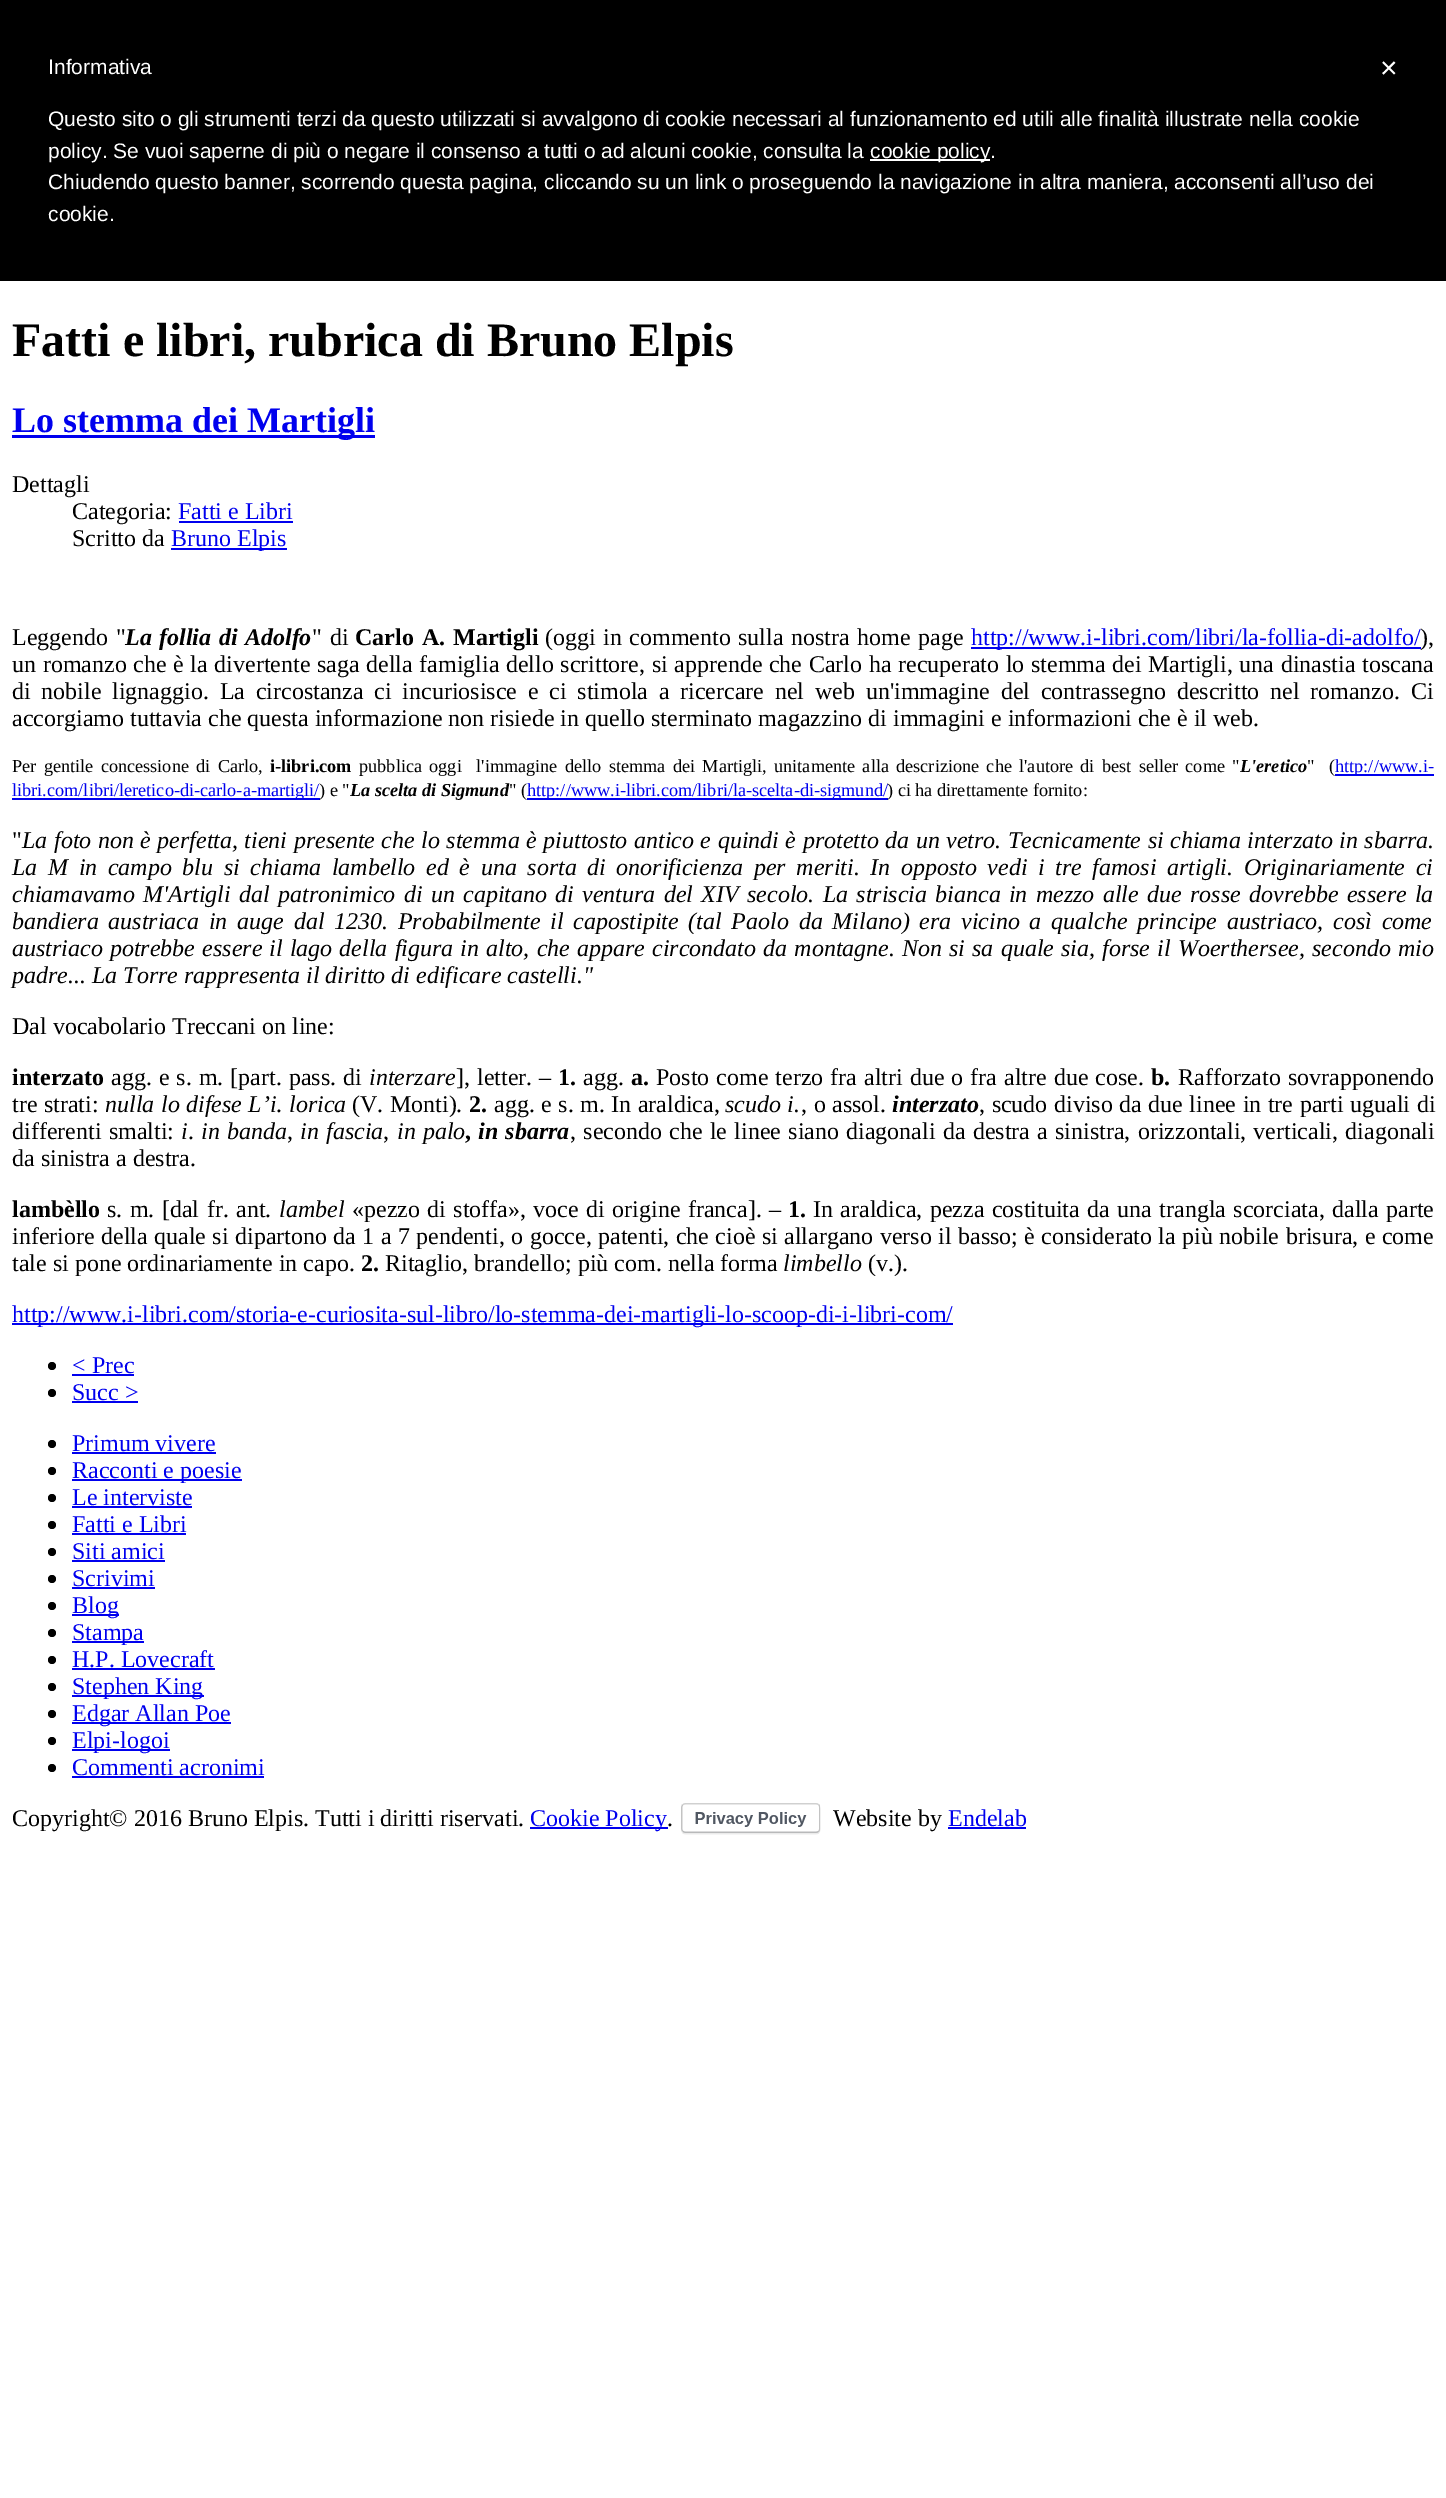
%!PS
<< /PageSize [1446 2498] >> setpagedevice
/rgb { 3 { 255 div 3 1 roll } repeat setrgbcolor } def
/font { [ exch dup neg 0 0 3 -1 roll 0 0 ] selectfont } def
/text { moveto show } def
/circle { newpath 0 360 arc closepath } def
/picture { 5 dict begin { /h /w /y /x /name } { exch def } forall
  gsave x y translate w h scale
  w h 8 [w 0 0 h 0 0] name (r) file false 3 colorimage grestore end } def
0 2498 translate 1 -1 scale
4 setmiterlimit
255 255 255 rgb
0 0 1446 2498 rectfill
0 0 0 rgb
0 0 1446 281 rectfill
255 255 255 rgb
870 159 120 2 rectfill
0 0 238 rgb
12 435 363 3 rectfill
179 521 114 2 rectfill
171 548 116 2 rectfill
971 647 450 2 rectfill
1335 774 99 2 rectfill
12 798 308 2 rectfill
527 798 361 2 rectfill
12 1323 941 2 rectfill
0 0 0 rgb
52 1366 4 circle fill
0 0 238 rgb
72 1374 62 2 rectfill
0 0 0 rgb
52 1393 4 circle fill
0 0 238 rgb
72 1401 66 2 rectfill
0 0 0 rgb
52 1444 4 circle fill
0 0 238 rgb
72 1452 144 2 rectfill
0 0 0 rgb
52 1471 4 circle fill
0 0 238 rgb
72 1479 170 2 rectfill
0 0 0 rgb
52 1498 4 circle fill
0 0 238 rgb
72 1506 120 2 rectfill
0 0 0 rgb
52 1525 4 circle fill
0 0 238 rgb
72 1533 114 2 rectfill
0 0 0 rgb
52 1552 4 circle fill
0 0 238 rgb
72 1560 93 2 rectfill
0 0 0 rgb
52 1579 4 circle fill
0 0 238 rgb
72 1587 83 2 rectfill
0 0 0 rgb
52 1606 4 circle fill
0 0 238 rgb
72 1614 47 2 rectfill
0 0 0 rgb
52 1633 4 circle fill
0 0 238 rgb
72 1641 72 2 rectfill
0 0 0 rgb
52 1660 4 circle fill
0 0 238 rgb
72 1668 143 2 rectfill
0 0 0 rgb
52 1687 4 circle fill
0 0 238 rgb
72 1695 132 2 rectfill
0 0 0 rgb
52 1714 4 circle fill
0 0 238 rgb
72 1722 159 2 rectfill
0 0 0 rgb
52 1741 4 circle fill
0 0 238 rgb
72 1749 98 2 rectfill
0 0 0 rgb
52 1768 4 circle fill
0 0 238 rgb
72 1776 192 2 rectfill
530 1827 138 2 rectfill
(img_01.rgb) 681 1803 140 32 picture
948 1827 78 2 rectfill
/LiberationSans-Regular 21 font
255 255 255 rgb
(Informativa) 48 74 text
(Questo sito o gli strumenti terzi da questo utilizzati si avvalgono di cookie necessari al funzionamento ed utili alle finalità illustrate nella cookie) 48 126 text
(policy. Se vuoi saperne di più o negare il consenso a tutti o ad alcuni cookie, consulta la) 48 158 text
(cookie policy.) 870 158 text
(Chiudendo questo banner, scorrendo questa pagina, cliccando su un link o proseguendo la navigazione in altra maniera, acconsenti all’uso dei) 48 189 text
(cookie.) 48 221 text
/LiberationSans-Regular 30 font
(×) 1380 78 text
/LiberationSerif-Bold 48 font
0 0 0 rgb
(Fatti e libri, rubrica di Bruno Elpis) 12 356 text
/LiberationSerif-Bold 36 font
0 0 238 rgb
(Lo stemma dei Martigli) 12 432 text
/LiberationSerif-Regular 24 font
0 0 0 rgb
(Dettagli) 12 492 text
(Categoria:) 72 519 text
0 0 238 rgb
(Fatti e Libri) 178 519 text
0 0 0 rgb
(Scritto da) 72 546 text
0 0 238 rgb
(Bruno Elpis) 171 546 text
0 0 0 rgb
12 645 moveto 2 0 32 (Leggendo ") widthshow
/LiberationSerif-BoldItalic 24 font
125 645 moveto 1.5 0 32 (La follia di Adolfo) widthshow
/LiberationSerif-Regular 24 font
312 645 moveto 2 0 32 (" di) widthshow
/LiberationSerif-Bold 24 font
355 645 moveto 2 0 32 (Carlo A. Martigli) widthshow
/LiberationSerif-Regular 24 font
545 645 moveto 1.5 0 32 (\(oggi in commento sulla nostra home page) widthshow
0 0 238 rgb
(http://www.i-libri.com/libri/la-follia-di-adolfo/) 971 645 text
0 0 0 rgb
(\),) 1420 645 text
12 672 moveto 0.6 0 32 (un romanzo che è la divertente saga della famiglia dello scrittore, si apprende che Carlo ha recuperato lo stemma dei Martigli, una dinastia toscana) widthshow
12 699 moveto 4.75 0 32 (di nobile lignaggio. La circostanza ci incuriosisce e ci stimola a ricercare nel web un'immagine del contrassegno descritto nel romanzo. Ci) widthshow
(accorgiamo tuttavia che questa informazione non risiede in quello sterminato magazzino di immagini e informazioni che è il web.) 12 726 text
/LiberationSerif-Regular 18.25 font
12 772 moveto 2.75 0 32 (Per gentile concessione di Carlo,) widthshow
/LiberationSerif-Bold 18.25 font
(i-libri.com) 270 772 text
/LiberationSerif-Regular 18.25 font
359 772 moveto 2.75 0 32 (pubblica oggi  l'immagine dello stemma dei Martigli, unitamente alla descrizione che l'autore di best seller come ") widthshow
/LiberationSerif-BoldItalic 18.25 font
(L'eretico) 1240 772 text
/LiberationSerif-Regular 18.25 font
1307 772 moveto 2.75 0 32 ("  \() widthshow
0 0 238 rgb
(http://www.i-) 1335 772 text
(libri.com/libri/leretico-di-carlo-a-martigli/) 12 796 text
0 0 0 rgb
(\) e ") 319 796 text
/LiberationSerif-BoldItalic 18.25 font
(La scelta di Sigmund) 350 796 text
/LiberationSerif-Regular 18.25 font
(" \() 509 796 text
0 0 238 rgb
(http://www.i-libri.com/libri/la-scelta-di-sigmund/) 527 796 text
0 0 0 rgb
(\) ci ha direttamente fornito:) 887 796 text
/LiberationSerif-Regular 24 font
(") 12 848 text
/LiberationSerif-Italic 24 font
22 848 moveto 0.5 0 32 (La foto non è perfetta, tieni presente che lo stemma è piuttosto antico e quindi è protetto da un vetro. Tecnicamente si chiama interzato in sbarra.) widthshow
12 875 moveto 4.6 0 32 (La M in campo blu si chiama lambello ed è una sorta di onorificienza per meriti. In opposto vedi i tre famosi artigli. Originariamente ci) widthshow
12 902 moveto 2.3 0 32 (chiamavamo M'Artigli dal patronimico di un capitano di ventura del XIV secolo. La striscia bianca in mezzo alle due rosse dovrebbe essere la) widthshow
12 929 moveto 3.75 0 32 (bandiera austriaca in auge dal 1230. Probabilmente il capostipite \(tal Paolo da Milano\) era vicino a qualche principe austriaco, così come) widthshow
12 956 moveto 1.1 0 32 (austriaco potrebbe essere il lago della figura in alto, che appare circondato da montagne. Non si sa quale sia, forse il Woerthersee, secondo mio) widthshow
(padre... La Torre rappresenta il diritto di edificare castelli.") 12 983 text
/LiberationSerif-Regular 24 font
(Dal vocabolario Treccani on line:) 12 1034 text
/LiberationSerif-Bold 24 font
(interzato) 12 1085 text
/LiberationSerif-Regular 24 font
111 1085 moveto 1 0 32 (agg. e s. m. [part. pass. di) widthshow
/LiberationSerif-Italic 24 font
(interzare) 369 1085 text
/LiberationSerif-Regular 24 font
456 1085 moveto 1 0 32 (], letter. –) widthshow
/LiberationSerif-Bold 24 font
(1.) 558 1085 text
/LiberationSerif-Regular 24 font
(agg.) 583 1085 text
/LiberationSerif-Bold 24 font
(a.) 631 1085 text
/LiberationSerif-Regular 24 font
656 1085 moveto 1 0 32 (Posto come terzo fra altri due o fra altre due cose.) widthshow
/LiberationSerif-Bold 24 font
(b.) 1151 1085 text
/LiberationSerif-Regular 24 font
1178 1085 moveto 1 0 32 (Rafforzato sovrapponendo) widthshow
12 1112 moveto 0.5 0 32 (tre strati:) widthshow
/LiberationSerif-Italic 24 font
105 1112 moveto 0.5 0 32 (nulla lo difese L’i) widthshow
/LiberationSerif-Regular 24 font
(.) 276 1112 text
/LiberationSerif-Italic 24 font
(lorica) 289 1112 text
/LiberationSerif-Regular 24 font
352 1112 moveto 0.5 0 32 (\(V. Monti\).) widthshow
/LiberationSerif-Bold 24 font
(2.) 469 1112 text
/LiberationSerif-Regular 24 font
494 1112 moveto 0.5 0 32 (agg. e s. m. In araldica,) widthshow
/LiberationSerif-Italic 24 font
(scudo i.) 725 1112 text
/LiberationSerif-Regular 24 font
801 1112 moveto 0.5 0 32 (, o assol.) widthshow
/LiberationSerif-BoldItalic 24 font
(interzato) 892 1112 text
/LiberationSerif-Regular 24 font
979 1112 moveto 0.5 0 32 (, scudo diviso da due linee in tre parti uguali di) widthshow
12 1139 moveto 1.25 0 32 (differenti smalti:) widthshow
/LiberationSerif-Italic 24 font
(i) 181 1139 text
/LiberationSerif-Regular 24 font
(.) 188 1139 text
/LiberationSerif-Italic 24 font
201 1139 moveto 1.25 0 32 (in banda) widthshow
/LiberationSerif-Regular 24 font
(,) 287 1139 text
/LiberationSerif-Italic 24 font
300 1139 moveto 1.25 0 32 (in fascia) widthshow
/LiberationSerif-Regular 24 font
(,) 383 1139 text
/LiberationSerif-Italic 24 font
397 1139 moveto 1 0 32 (in palo) widthshow
/LiberationSerif-Bold 24 font
(,) 465 1139 text
/LiberationSerif-BoldItalic 24 font
478 1139 moveto 1.25 0 32 (in sbarra) widthshow
/LiberationSerif-Regular 24 font
570 1139 moveto 1.25 0 32 (, secondo che le linee siano diagonali da destra a sinistra, orizzontali, verticali, diagonali) widthshow
(da sinistra a destra.) 12 1166 text
/LiberationSerif-Bold 24 font
(lambèllo) 12 1217 text
/LiberationSerif-Regular 24 font
107 1217 moveto 1.4 0 32 (s. m. [dal fr. ant.) widthshow
/LiberationSerif-Italic 24 font
(lambel) 279 1217 text
/LiberationSerif-Regular 24 font
352 1217 moveto 1.4 0 32 («pezzo di stoffa», voce di origine franca]. –) widthshow
/LiberationSerif-Bold 24 font
(1.) 788 1217 text
/LiberationSerif-Regular 24 font
813 1217 moveto 1.4 0 32 (In araldica, pezza costituita da una trangla scorciata, dalla parte) widthshow
12 1244 moveto 0.4 0 32 (inferiore della quale si dipartono da 1 a 7 pendenti, o gocce, patenti, che cioè si allargano verso il basso; è considerato la più nobile brisura, e come) widthshow
(tale si pone ordinariamente in capo.) 12 1271 text
/LiberationSerif-Bold 24 font
(2.) 361 1271 text
/LiberationSerif-Regular 24 font
(Ritaglio, brandello; più com. nella forma) 385 1271 text
/LiberationSerif-Italic 24 font
(limbello) 783 1271 text
/LiberationSerif-Regular 24 font
(\(v.\).) 868 1271 text
0 0 238 rgb
(http://www.i-libri.com/storia-e-curiosita-sul-libro/lo-stemma-dei-martigli-lo-scoop-di-i-libri-com/) 12 1322 text
(< Prec) 72 1373 text
(Succ >) 72 1400 text
(Primum vivere) 72 1451 text
(Racconti e poesie) 72 1478 text
(Le interviste) 72 1505 text
(Fatti e Libri) 72 1532 text
(Siti amici) 72 1559 text
(Scrivimi) 72 1586 text
(Blog) 72 1613 text
(Stampa) 72 1640 text
(H.P. Lovecraft) 72 1667 text
(Stephen King) 72 1694 text
(Edgar Allan Poe) 72 1721 text
(Elpi-logoi) 72 1748 text
(Commenti acronimi) 72 1775 text
0 0 0 rgb
(Copyright© 2016 Bruno Elpis. Tutti i diritti riservati.) 12 1826 text
0 0 238 rgb
(Cookie Policy) 530 1826 text
0 0 0 rgb
(.) 667 1826 text
(Website by) 833 1826 text
0 0 238 rgb
(Endelab) 948 1826 text
showpage
